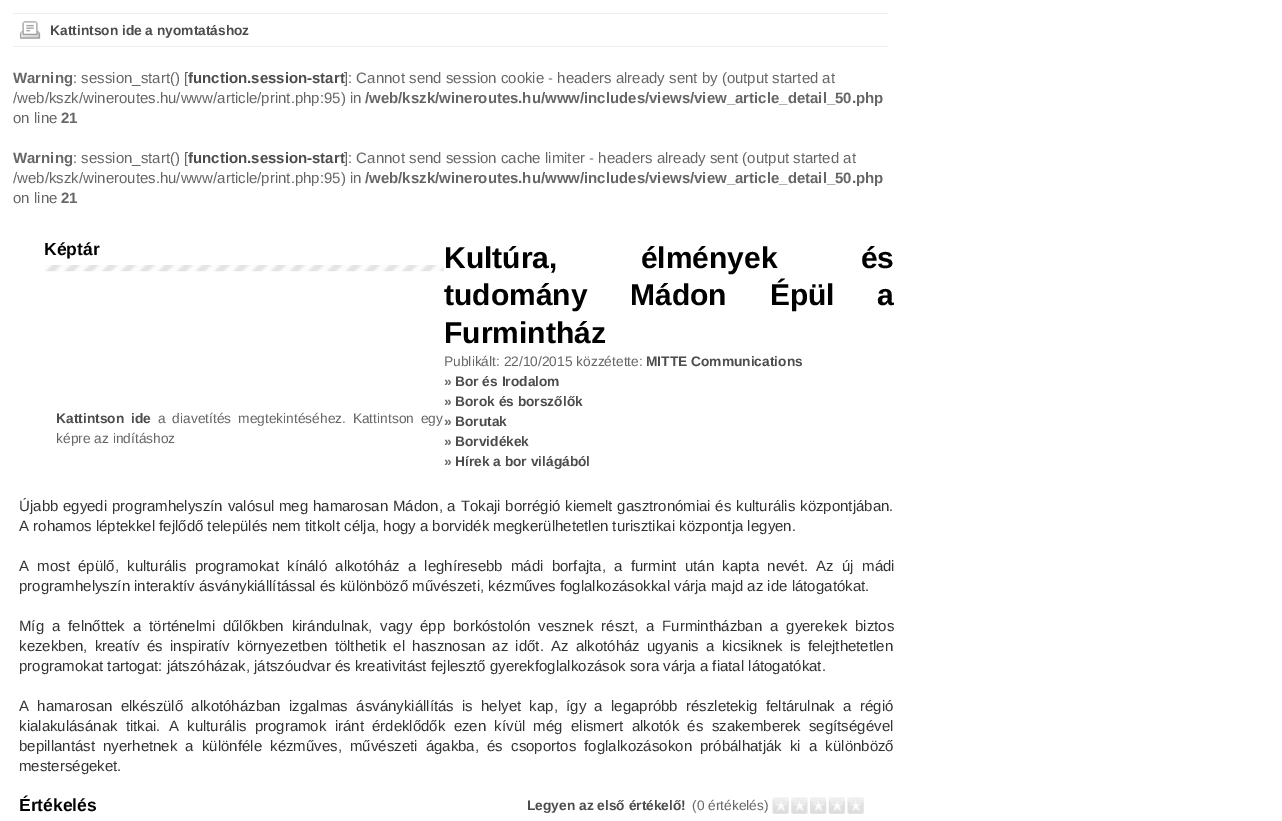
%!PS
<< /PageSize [1282 821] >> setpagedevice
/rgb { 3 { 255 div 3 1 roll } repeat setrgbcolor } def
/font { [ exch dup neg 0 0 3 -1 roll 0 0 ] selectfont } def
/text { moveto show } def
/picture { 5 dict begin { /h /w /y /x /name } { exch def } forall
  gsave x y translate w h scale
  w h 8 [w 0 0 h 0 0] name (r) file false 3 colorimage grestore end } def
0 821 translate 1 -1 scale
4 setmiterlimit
255 255 255 rgb
0 0 1282 821 rectfill
(img_01.rgb) 19 21 22 18 picture
238 238 238 rgb
13 13 875 1 rectfill
13 46 875 1 rectfill
(img_02.rgb) 45 265 399 7 picture
(img_03.rgb) 772 797 17 17 picture
(img_04.rgb) 791 797 17 17 picture
(img_05.rgb) 810 797 17 17 picture
(img_06.rgb) 828 797 17 17 picture
(img_07.rgb) 847 797 17 17 picture
/LiberationSans-Bold 13.75 font
76 76 76 rgb
(Kattintson ide a nyomtatáshoz) 50 35 text
/LiberationSans-Bold 15 font
102 102 102 rgb
(Warning) 13 83 text
/LiberationSans-Regular 15 font
(: session_start\(\) [) 73 83 text
/LiberationSans-Bold 15 font
76 76 76 rgb
(function.session-start) 188 83 text
/LiberationSans-Regular 15 font
102 102 102 rgb
(]: Cannot send session cookie - headers already sent by \(output started at) 344 83 text
(/web/kszk/wineroutes.hu/www/article/print.php:95\) in) 13 103 text
/LiberationSans-Bold 15 font
(/web/kszk/wineroutes.hu/www/includes/views/view_article_detail_50.php) 365 103 text
/LiberationSans-Regular 15 font
(on line) 13 123 text
/LiberationSans-Bold 15 font
(21) 61 123 text
(Warning) 13 163 text
/LiberationSans-Regular 15 font
(: session_start\(\) [) 73 163 text
/LiberationSans-Bold 15 font
76 76 76 rgb
(function.session-start) 188 163 text
/LiberationSans-Regular 15 font
102 102 102 rgb
(]: Cannot send session cache limiter - headers already sent \(output started at) 344 163 text
(/web/kszk/wineroutes.hu/www/article/print.php:95\) in) 13 183 text
/LiberationSans-Bold 15 font
(/web/kszk/wineroutes.hu/www/includes/views/view_article_detail_50.php) 365 183 text
/LiberationSans-Regular 15 font
(on line) 13 203 text
/LiberationSans-Bold 15 font
(21) 61 203 text
/LiberationSans-Bold 17.5 font
0 0 0 rgb
(Képtár) 44 255 text
/LiberationSans-Bold 13.75 font
76 76 76 rgb
56 423 moveto 3 0 32 (Kattintson ide) widthshow
/LiberationSans-Regular 13.75 font
102 102 102 rgb
158 423 moveto 3 0 32 (a diavetítés megtekintéséhez. Kattintson egy) widthshow
(képre az indításhoz) 56 443 text
/LiberationSans-Bold 30 font
0 0 0 rgb
444 268 moveto 75 0 32 (Kultúra, élmények és) widthshow
444 305 moveto 34.5 0 32 (tudomány Mádon Épül a) widthshow
(Furmintház) 444 343 text
/LiberationSans-Regular 13.75 font
102 102 102 rgb
(Publikált: 22/10/2015 közzétette:) 444 366 text
/LiberationSans-Bold 13.75 font
76 76 76 rgb
(MITTE Communications) 646 366 text
102 102 102 rgb
(») 444 386 text
76 76 76 rgb
(Bor és Irodalom) 455 386 text
102 102 102 rgb
(») 444 406 text
76 76 76 rgb
(Borok és borszőlők) 455 406 text
102 102 102 rgb
(») 444 426 text
76 76 76 rgb
(Borutak) 455 426 text
102 102 102 rgb
(») 444 446 text
76 76 76 rgb
(Borvidékek) 455 446 text
102 102 102 rgb
(») 444 466 text
76 76 76 rgb
(Hírek a bor világából) 455 466 text
/LiberationSans-Regular 15 font
51 51 51 rgb
19 511 moveto 0.6 0 32 (Újabb egyedi programhelyszín valósul meg hamarosan Mádon, a Tokaji borrégió kiemelt gasztronómiai és kulturális központjában.) widthshow
(A rohamos léptekkel fejlődő település nem titkolt célja, hogy a borvidék megkerülhetetlen turisztikai központja legyen.) 19 531 text
19 571 moveto 4.1 0 32 (A most épülő, kulturális programokat kínáló alkotóház a leghíresebb mádi borfajta, a furmint után kapta nevét. Az új mádi) widthshow
(programhelyszín interaktív ásványkiállítással és különböző művészeti, kézműves foglalkozásokkal várja majd az ide látogatókat.) 19 591 text
19 631 moveto 3.75 0 32 (Míg a felnőttek a történelmi dűlőkben kirándulnak, vagy épp borkóstolón vesznek részt, a Furmintházban a gyerekek biztos) widthshow
19 651 moveto 3.1 0 32 (kezekben, kreatív és inspiratív környezetben tölthetik el hasznosan az időt. Az alkotóház ugyanis a kicsiknek is felejthetetlen) widthshow
(programokat tartogat: játszóházak, játszóudvar és kreativitást fejlesztő gyerekfoglalkozások sora várja a fiatal látogatókat.) 19 671 text
19 711 moveto 4.1 0 32 (A hamarosan elkészülő alkotóházban izgalmas ásványkiállítás is helyet kap, így a legapróbb részletekig feltárulnak a régió) widthshow
19 731 moveto 4.1 0 32 (kialakulásának titkai. A kulturális programok iránt érdeklődők ezen kívül még elismert alkotók és szakemberek segítségével) widthshow
19 751 moveto 4 0 32 (bepillantást nyerhetnek a különféle kézműves, művészeti ágakba, és csoportos foglalkozásokon próbálhatják ki a különböző) widthshow
(mesterségeket.) 19 771 text
/LiberationSans-Bold 17.5 font
0 0 0 rgb
(Értékelés) 19 811 text
/LiberationSans-Bold 13.75 font
76 76 76 rgb
(Legyen az első értékelő!) 527 810 text
/LiberationSans-Regular 13.75 font
102 102 102 rgb
(\(0 értékelés\)) 692 810 text
showpage
